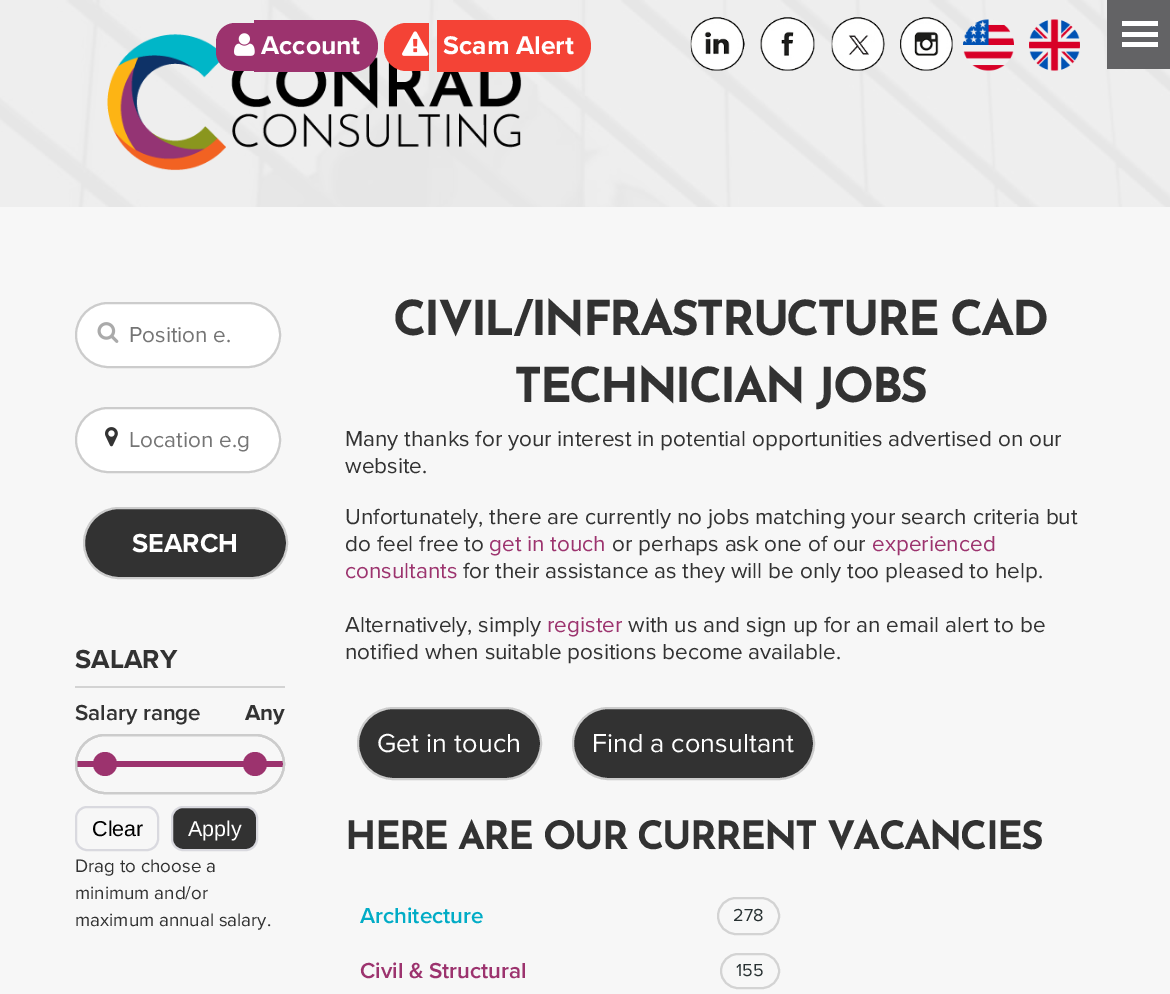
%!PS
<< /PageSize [1170 994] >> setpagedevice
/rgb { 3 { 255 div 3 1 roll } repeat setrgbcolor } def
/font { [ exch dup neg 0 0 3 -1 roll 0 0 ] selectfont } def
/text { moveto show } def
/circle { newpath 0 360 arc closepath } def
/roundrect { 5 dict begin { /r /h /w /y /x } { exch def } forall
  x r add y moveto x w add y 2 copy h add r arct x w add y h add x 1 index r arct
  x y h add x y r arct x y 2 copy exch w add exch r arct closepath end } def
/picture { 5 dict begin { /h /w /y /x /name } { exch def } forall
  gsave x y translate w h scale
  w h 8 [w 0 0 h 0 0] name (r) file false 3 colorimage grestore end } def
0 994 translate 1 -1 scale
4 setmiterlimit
247 247 247 rgb
0 0 1170 994 rectfill
(img_01.rgb) 0 0 1170 207 picture
(img_02.rgb) 107 34 415 137 picture
(img_03.rgb) 690 17 55 54 picture
(img_04.rgb) 760 17 55 54 picture
(img_05.rgb) 831 17 54 54 picture
(img_06.rgb) 900 17 53 54 picture
(img_07.rgb) 963 19 51 52 picture
(img_08.rgb) 1029 19 51 52 picture
99 99 101 rgb
1107 0 63 69 rectfill
255 255 255 rgb
1122 32 36 5 rectfill
1122 21 36 5 rectfill
1122 42 36 5 rectfill
156 51 110 rgb
235 23 moveto 19 0 rlineto 0 48 rlineto -19 0 rlineto -10.5 0 -19 -8.5 -19 -19 rcurveto 0 -10 rlineto 0 -10.5 8.5 -19 19 -19 rcurveto closepath fill
254 20 moveto 98 0 rlineto 14.5 0 26 11.5 26 26 rcurveto 0 14.5 -11.5 26 -26 26 rcurveto -98 0 rlineto closepath fill
(img_09.rgb) 234 33 21 23 picture
244 67 54 rgb
406.5 23 moveto 22.5 0 rlineto 0 48 rlineto -22.5 0 rlineto -12.5 0 -22.5 -10 -22.5 -22.5 rcurveto 0 -3 rlineto 0 -12.5 10 -22.5 22.5 -22.5 rcurveto closepath fill
437 20 moveto 128 0 rlineto 14.5 0 26 11.5 26 26 rcurveto 0 14.5 -11.5 26 -26 26 rcurveto -128 0 rlineto closepath fill
(img_10.rgb) 402 31 27 25 picture
255 255 255 rgb
76 303 204 64 32 roundrect gsave fill grestore
204 204 204 rgb
2 setlinewidth
stroke
(img_11.rgb) 97 322 22 21 picture
255 255 255 rgb
76 408 204 64 32 roundrect gsave fill grestore
204 204 204 rgb
stroke
(img_12.rgb) 105 427 13 20 picture
50 50 50 rgb
84 508 203 70 35 roundrect gsave fill grestore
204 204 204 rgb
stroke
211 211 211 rgb
75 686 210 2 rectfill
156 51 110 rgb
75 761 210 6 3 roundrect fill
204 204 204 rgb
76 735 208 58 29 roundrect stroke
156 51 110 rgb
105 764 12 circle fill
204 204 204 rgb
76 735 208 58 29 roundrect stroke
156 51 110 rgb
255 764 12 circle fill
217 217 223 rgb
76 807 82 43 11 roundrect stroke
50 50 50 rgb
172 807 85 43 11 roundrect gsave fill grestore
217 217 223 rgb
stroke
50 50 50 rgb
358 708 183 71 35.5 roundrect gsave fill grestore
204 204 204 rgb
stroke
50 50 50 rgb
573 708 241 71 35.5 roundrect gsave fill grestore
204 204 204 rgb
stroke
211 211 211 rgb
718 898 61 36 18 roundrect stroke
721 954 58 34 17 roundrect stroke
/ProximaNova-Bold 26.5 font
255 255 255 rgb
(Account) 261 54 text
(Scam Alert) 443 54 text
/ProximaNova-Regular 22.5 font
117 117 117 rgb
(Position e.) 129 342 text
(Location e.g) 129 447 text
/ProximaNova-Bold 27 font
255 255 255 rgb
(SEARCH) 132 552 text
50 50 50 rgb
(SALARY) 75 668 text
/ProximaNova-SemiBold 22.5 font
(Salary range) 75 720 text
/ProximaNova-Bold 22.5 font
(Any) 245 720 text
/LiberationSans-Regular 21.5 font
0 0 0 rgb
(Clear) 92 836 text
255 255 255 rgb
(Apply) 188 836 text
/ProximaNova-Regular 18.75 font
50 50 50 rgb
(Drag to choose a) 75 872 text
(minimum and/or) 75 899 text
(maximum annual salary.) 75 926 text
/JosefinSans-Bold 48 font
393 335 moveto -2.4 0 (CIVIL/INFRASTRUCTURE CAD) ashow
514 402 moveto -2.4 0 (TECHNICIAN JOBS) ashow
/ProximaNova-Regular 22.5 font
(Many thanks for your interest in potential opportunities advertised on our) 345 446 text
(website.) 345 473 text
(Unfortunately, there are currently no jobs matching your search criteria but) 345 524 text
(do feel free to) 345 551 text
156 51 110 rgb
(get in touch) 489 551 text
50 50 50 rgb
(or perhaps ask one of our) 612 551 text
156 51 110 rgb
(experienced) 872 551 text
(consultants) 345 578 text
50 50 50 rgb
(for their assistance as they will be only too pleased to help.) 463 578 text
(Alternatively, simply) 345 632 text
156 51 110 rgb
(register) 547 632 text
50 50 50 rgb
(with us and sign up for an email alert to be) 628 632 text
(notified when suitable positions become available.) 345 659 text
/ProximaNova-Regular 27 font
255 255 255 rgb
(Get in touch) 377 752 text
(Find a consultant) 592 752 text
/JosefinSans-Bold 39 font
50 50 50 rgb
345 849 moveto -1.95 0 (HERE ARE OUR CURRENT VACANCIES) ashow
/ProximaNova-SemiBold 22.5 font
1 172 198 rgb
(Architecture) 360 923 text
/ProximaNova-Regular 18 font
40 49 50 rgb
(278) 733 921 text
/ProximaNova-SemiBold 22.5 font
156 51 110 rgb
(Civil & Structural) 360 978 text
/ProximaNova-Regular 18 font
40 49 50 rgb
(155) 736 976 text
showpage
